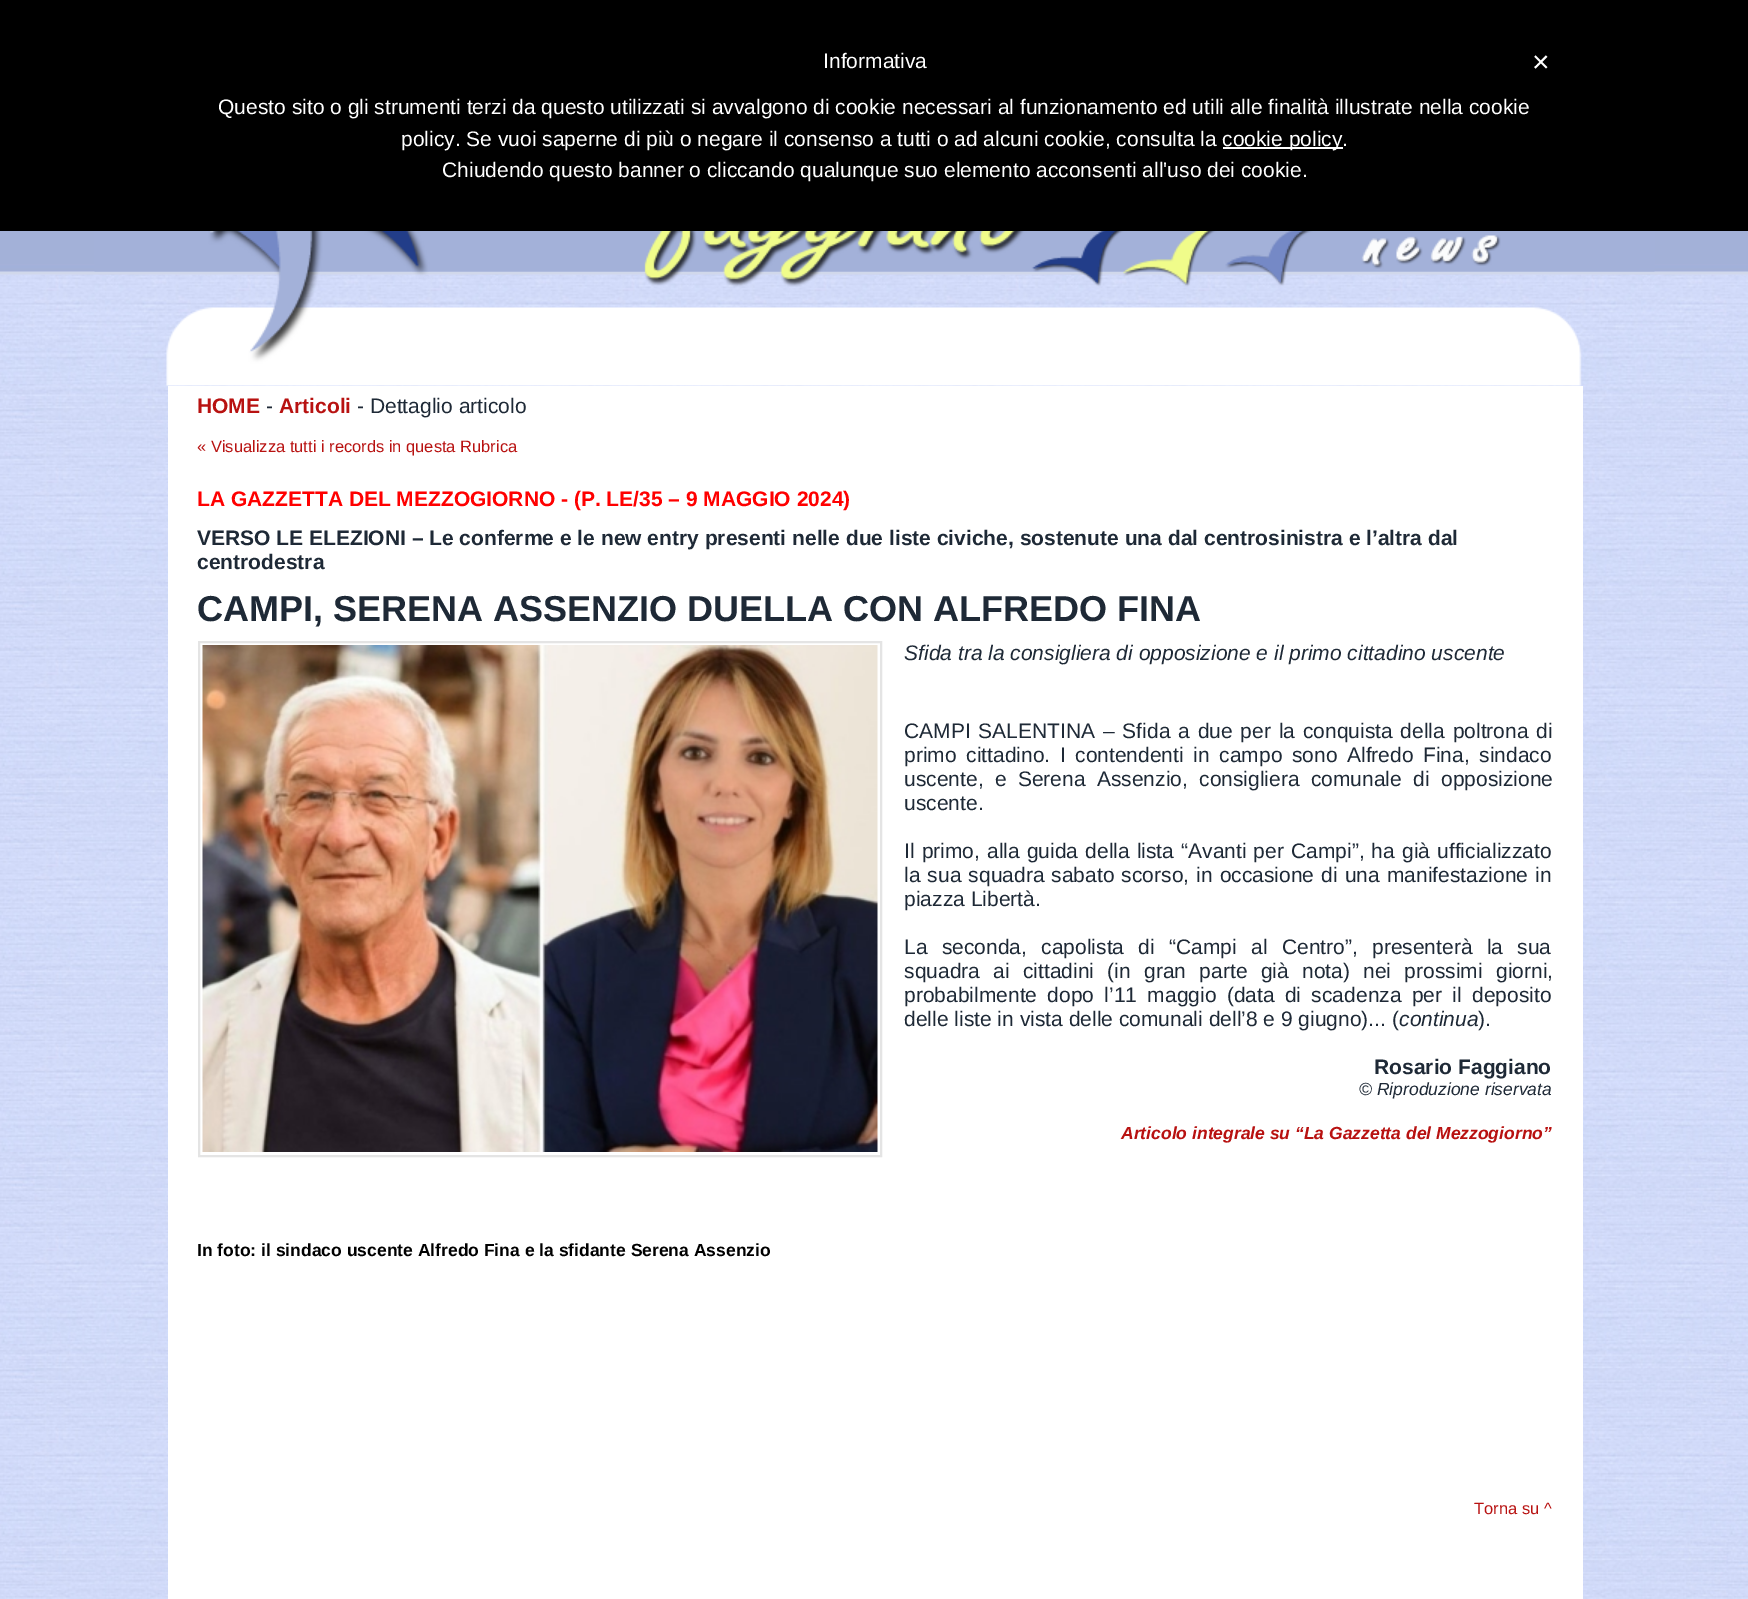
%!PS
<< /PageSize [1748 1599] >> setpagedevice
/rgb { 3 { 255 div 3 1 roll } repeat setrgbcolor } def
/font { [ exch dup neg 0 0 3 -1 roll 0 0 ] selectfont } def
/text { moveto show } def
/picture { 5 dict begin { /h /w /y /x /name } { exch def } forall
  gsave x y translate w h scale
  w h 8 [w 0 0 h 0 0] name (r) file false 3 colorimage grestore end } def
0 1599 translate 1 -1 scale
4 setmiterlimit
255 255 255 rgb
0 0 1748 1599 rectfill
(img_01.rgb) 0 274 1748 1325 picture
0 0 0 rgb
0 0 1748 231 rectfill
255 255 255 rgb
1223 147 120 2 rectfill
(img_02.rgb) 0 231 1748 44 picture
(img_03.rgb) 94 231 1561 155 picture
168 386 1415 1213 rectfill
228 228 228 rgb
2 setlinewidth
199 642 682 514 rectstroke
(img_04.rgb) 202 645 676 507 picture
/LiberationSans-Regular 21 font
255 255 255 rgb
(Informativa) 823 68 text
(Questo sito o gli strumenti terzi da questo utilizzati si avvalgono di cookie necessari al funzionamento ed utili alle finalità illustrate nella cookie) 218 114 text
(policy. Se vuoi saperne di più o negare il consenso a tutti o ad alcuni cookie, consulta la) 401 146 text
(cookie policy.) 1222 146 text
(Chiudendo questo banner o cliccando qualunque suo elemento acconsenti all'uso dei cookie.) 442 177 text
/LiberationSans-Regular 30 font
(×) 1532 72 text
/LiberationSans-Bold 21 font
184 18 17 rgb
(HOME) 197 413 text
/LiberationSans-Regular 21 font
30 41 54 rgb
(-) 266 413 text
/LiberationSans-Bold 21 font
184 18 17 rgb
(Articoli) 279 413 text
/LiberationSans-Regular 21 font
30 41 54 rgb
(- Dettaglio articolo) 357 413 text
/LiberationSans-Regular 16.5 font
184 18 17 rgb
(« Visualizza tutti i records in questa Rubrica) 197 452 text
/LiberationSans-Bold 21 font
255 0 0 rgb
(LA GAZZETTA DEL MEZZOGIORNO - \(P. LE/35 – 9 MAGGIO 2024\)) 197 506 text
30 41 54 rgb
(VERSO LE ELEZIONI – Le conferme e le new entry presenti nelle due liste civiche, sostenute una dal centrosinistra e l’altra dal) 197 545 text
(centrodestra) 197 569 text
/LiberationSans-Bold 36 font
(CAMPI, SERENA ASSENZIO DUELLA CON ALFREDO FINA) 197 621 text
/LiberationSans-Italic 21 font
(Sfida tra la consigliera di opposizione e il primo cittadino uscente) 904 660 text
/LiberationSans-Regular 21 font
904 738 moveto 2 0 32 (CAMPI SALENTINA – Sfida a due per la conquista della poltrona di) widthshow
904 762 moveto 3.75 0 32 (primo cittadino. I contendenti in campo sono Alfredo Fina, sindaco) widthshow
904 786 moveto 5.5 0 32 (uscente, e Serena Assenzio, consigliera comunale di opposizione) widthshow
(uscente.) 904 810 text
904 858 moveto 1.25 0 32 (Il primo, alla guida della lista “Avanti per Campi”, ha già ufficializzato) widthshow
904 882 moveto 1.25 0 32 (la sua squadra sabato scorso, in occasione di una manifestazione in) widthshow
(piazza Libertà.) 904 906 text
904 954 moveto 8.5 0 32 (La seconda, capolista di “Campi al Centro”, presenterà la sua) widthshow
904 978 moveto 7.5 0 32 (squadra ai cittadini \(in gran parte già nota\) nei prossimi giorni,) widthshow
904 1002 moveto 4.5 0 32 (probabilmente dopo l’11 maggio \(data di scadenza per il deposito) widthshow
(delle liste in vista delle comunali dell’8 e 9 giugno\)... \() 904 1026 text
/LiberationSans-Italic 21 font
(continua) 1399 1026 text
/LiberationSans-Regular 21 font
(\).) 1478 1026 text
/LiberationSans-Bold 21 font
(Rosario Faggiano) 1374 1074 text
/LiberationSans-Italic 17.5 font
(© Riproduzione riservata) 1359 1095 text
/LiberationSans-BoldItalic 17.5 font
184 18 17 rgb
(Articolo integrale su “La Gazzetta del Mezzogiorno”) 1121 1139 text
/LiberationSans-Bold 17.5 font
0 0 0 rgb
(In foto: il sindaco uscente Alfredo Fina e la sfidante Serena Assenzio) 197 1256 text
/LiberationSans-Regular 16.5 font
184 18 17 rgb
(Torna su ^) 1474 1514 text
showpage
